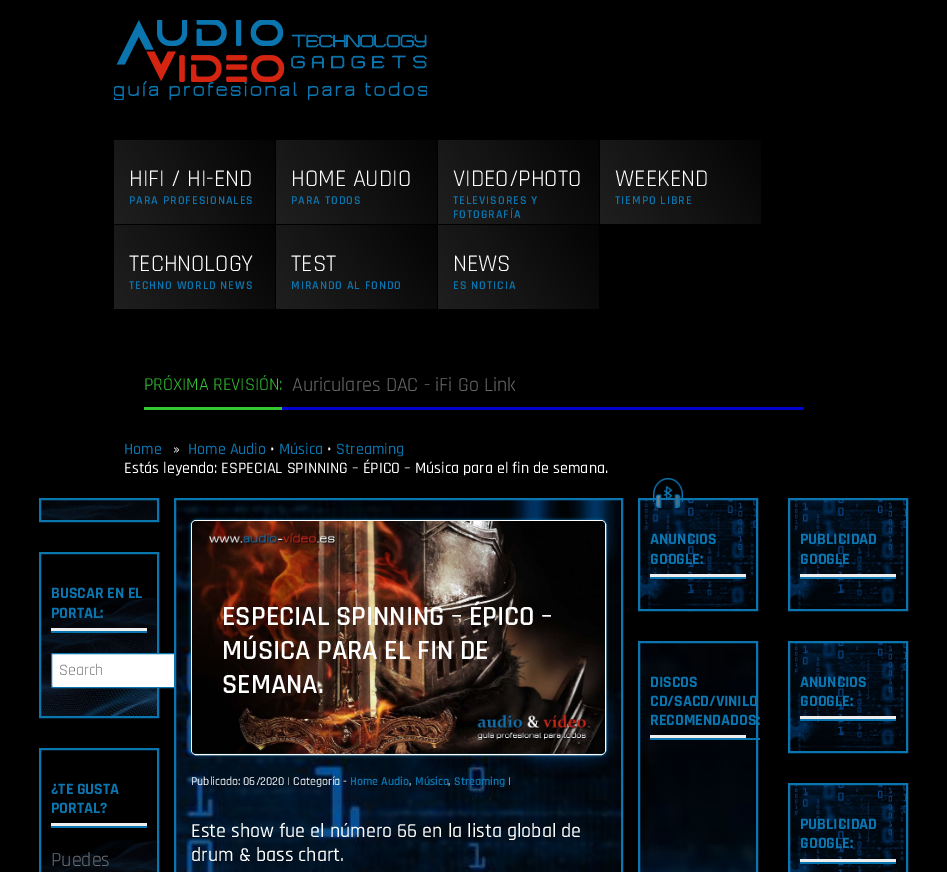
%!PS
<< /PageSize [947 872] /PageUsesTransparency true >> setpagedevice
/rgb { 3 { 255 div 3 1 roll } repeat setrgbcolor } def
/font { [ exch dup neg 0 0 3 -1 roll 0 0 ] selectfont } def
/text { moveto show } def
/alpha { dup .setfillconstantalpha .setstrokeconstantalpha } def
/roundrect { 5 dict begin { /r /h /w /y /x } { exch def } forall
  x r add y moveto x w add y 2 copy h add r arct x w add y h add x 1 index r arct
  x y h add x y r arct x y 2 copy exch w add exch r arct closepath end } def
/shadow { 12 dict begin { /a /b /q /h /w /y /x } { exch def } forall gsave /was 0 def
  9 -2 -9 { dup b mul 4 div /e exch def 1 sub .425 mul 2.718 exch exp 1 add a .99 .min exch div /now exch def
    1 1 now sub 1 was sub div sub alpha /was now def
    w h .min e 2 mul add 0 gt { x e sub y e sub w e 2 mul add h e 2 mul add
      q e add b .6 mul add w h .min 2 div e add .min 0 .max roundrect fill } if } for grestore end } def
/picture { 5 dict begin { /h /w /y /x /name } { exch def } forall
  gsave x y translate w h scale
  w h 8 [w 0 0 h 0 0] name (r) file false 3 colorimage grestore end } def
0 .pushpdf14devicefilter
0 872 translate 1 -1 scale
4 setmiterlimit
0 0 0 rgb
0 0 947 872 rectfill
(img_01.rgb) 114 20 313 80 picture
(img_02.rgb) 114 140 161 84 picture
(img_02.rgb) 276 140 161 84 picture
(img_02.rgb) 438 140 161 84 picture
(img_02.rgb) 600 140 161 84 picture
(img_02.rgb) 114 225 161 84 picture
(img_02.rgb) 276 225 161 84 picture
(img_02.rgb) 438 225 161 84 picture
0 0 206 rgb
282 407 522 3 rectfill
52 200 52 rgb
144 407 138 3 rectfill
(img_03.rgb) 41 500 116 20 picture
11 117 175 rgb
2 setlinewidth
40 499 118 22 rectstroke
(img_04.rgb) 41 597 116 119 picture
40 553 118 164 rectstroke
238 238 238 rgb
51 628 96 3 rectfill
11 117 175 rgb
51 631 96 2 rectfill
255 255 255 rgb
51.5 653.5 206 34 1.5 roundrect gsave fill grestore
11 117 175 rgb
1 setlinewidth
stroke
(img_05.rgb) 41 840 116 32 picture
2 setlinewidth
40 749 118 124 rectstroke
238 238 238 rgb
51 823 96 3 rectfill
11 117 175 rgb
51 826 96 2 rectfill
(img_06.rgb) 176 500 445 372 picture
175 499 447 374 rectstroke
12 115 177 rgb
191 520 415 235 5 1.5 1 shadow
255 255 255 rgb
1 setlinewidth
191.5 520.5 414 234 4.5 roundrect stroke
(img_07.rgb) 192 521 413 233 picture
(img_09.rgb) 639 500 118 112 picture
11 117 175 rgb
2 setlinewidth
639 499 118 111 rectstroke
(img_08.rgb) 653 478 30 30 picture
238 238 238 rgb
650 574 96 3 rectfill
11 117 175 rgb
650 577 96 2 rectfill
(img_10.rgb) 640 643 116 229 picture
639 642 118 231 rectstroke
238 238 238 rgb
650 735 96 3 rectfill
11 117 175 rgb
650 738 110 2 rectfill
(img_11.rgb) 790 500 116 109 picture
789 499 118 111 rectstroke
238 238 238 rgb
800 574 96 3 rectfill
11 117 175 rgb
800 577 96 2 rectfill
(img_12.rgb) 790 643 116 108 picture
789 642 118 110 rectstroke
238 238 238 rgb
800 716 96 3 rectfill
11 117 175 rgb
800 719 96 2 rectfill
(img_13.rgb) 790 785 116 87 picture
789 784 118 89 rectstroke
238 238 238 rgb
800 859 96 3 rectfill
11 117 175 rgb
800 862 96 2 rectfill
/Rajdhani-Regular 24 font
255 255 255 rgb
(HIFI / HI-END) 129 186 text
/Rajdhani-SemiBold 12 font
11 117 175 rgb
129 204 moveto 1 0 (PARA PROFESIONALES) ashow
/Rajdhani-Regular 24 font
255 255 255 rgb
(HOME AUDIO) 291 186 text
/Rajdhani-SemiBold 12 font
11 117 175 rgb
291 204 moveto 1 0 (PARA TODOS) ashow
/Rajdhani-Regular 24 font
255 255 255 rgb
(VIDEO/PHOTO) 453 186 text
/Rajdhani-SemiBold 12 font
11 117 175 rgb
453 204 moveto 1 0 (TELEVISORES Y) ashow
453 218 moveto 1 0 (FOTOGRAFÍA) ashow
/Rajdhani-Regular 24 font
255 255 255 rgb
(WEEKEND) 615 186 text
/Rajdhani-SemiBold 12 font
11 117 175 rgb
615 204 moveto 1 0 (TIEMPO LIBRE) ashow
/Rajdhani-Regular 24 font
255 255 255 rgb
(TECHNOLOGY) 129 271 text
/Rajdhani-SemiBold 12 font
11 117 175 rgb
129 289 moveto 1 0 (TECHNO WORLD NEWS) ashow
/Rajdhani-Regular 24 font
255 255 255 rgb
(TEST) 291 271 text
/Rajdhani-SemiBold 12 font
11 117 175 rgb
291 289 moveto 1 0 (MIRANDO AL FONDO) ashow
/Rajdhani-Regular 24 font
255 255 255 rgb
(NEWS) 453 271 text
/Rajdhani-SemiBold 12 font
11 117 175 rgb
453 289 moveto 1 0 (ES NOTICIA) ashow
/Rajdhani-Regular 18 font
52 200 52 rgb
(PRÓXIMA REVISIÓN:) 144 390 text
/Rajdhani-Regular 20 font
109 109 109 rgb
(Auriculares DAC - iFi Go Link) 292 391 text
/Rajdhani-Medium 16 font
11 117 175 rgb
(Home) 124 454 text
255 255 255 rgb
(») 173 454 text
11 117 175 rgb
(Home Audio) 188 454 text
255 255 255 rgb
(•) 270 454 text
11 117 175 rgb
(Música) 279 454 text
255 255 255 rgb
(•) 327 454 text
11 117 175 rgb
(Streaming) 336 454 text
255 255 255 rgb
(Estás leyendo: ESPECIAL SPINNING – ÉPICO – Música para el fin de semana.) 124 473 text
/Rajdhani-Bold 16 font
11 117 175 rgb
(BUSCAR EN EL) 51 598 text
(PORTAL:) 51 618 text
/Rajdhani-Regular 16 font
117 117 117 rgb
(Search) 59 675 text
/Rajdhani-Bold 16 font
11 117 175 rgb
(¿TE GUSTA) 51 794 text
(PORTAL?) 51 813 text
/Rajdhani-Regular 20 font
109 109 109 rgb
(Puedes) 51 866 text
/Rajdhani-SemiBold 28 font
255 255 255 rgb
(ESPECIAL SPINNING – ÉPICO –) 222 625 text
(MÚSICA PARA EL FIN DE) 222 659 text
(SEMANA.) 222 693 text
/Rajdhani-Medium 12 font
(Publicado: 06/2020 | Categoría -) 191 785 text
/Rajdhani-SemiBold 12 font
11 117 175 rgb
(Home Audio) 350 785 text
/Rajdhani-Medium 12 font
255 255 255 rgb
(,) 409 785 text
/Rajdhani-SemiBold 12 font
11 117 175 rgb
(Música) 415 785 text
/Rajdhani-Medium 12 font
255 255 255 rgb
(,) 448 785 text
/Rajdhani-SemiBold 12 font
11 117 175 rgb
(Streaming) 454 785 text
/Rajdhani-Medium 12 font
255 255 255 rgb
(|) 508 785 text
/Rajdhani-Medium 20 font
(Este show fue el número 66 en la lista global de) 191 837 text
(drum & bass chart.) 191 861 text
/Rajdhani-Bold 16 font
11 117 175 rgb
(ANUNCIOS) 650 544 text
(GOOGLE:) 650 564 text
(DISCOS) 650 687 text
(CD/SACD/VINILO) 650 706 text
(RECOMENDADOS:) 650 725 text
(PUBLICIDAD) 800 544 text
(GOOGLE) 800 564 text
(ANUNCIOS) 800 687 text
(GOOGLE:) 800 706 text
(PUBLICIDAD) 800 829 text
(GOOGLE:) 800 848 text
.poppdf14devicefilter showpage
